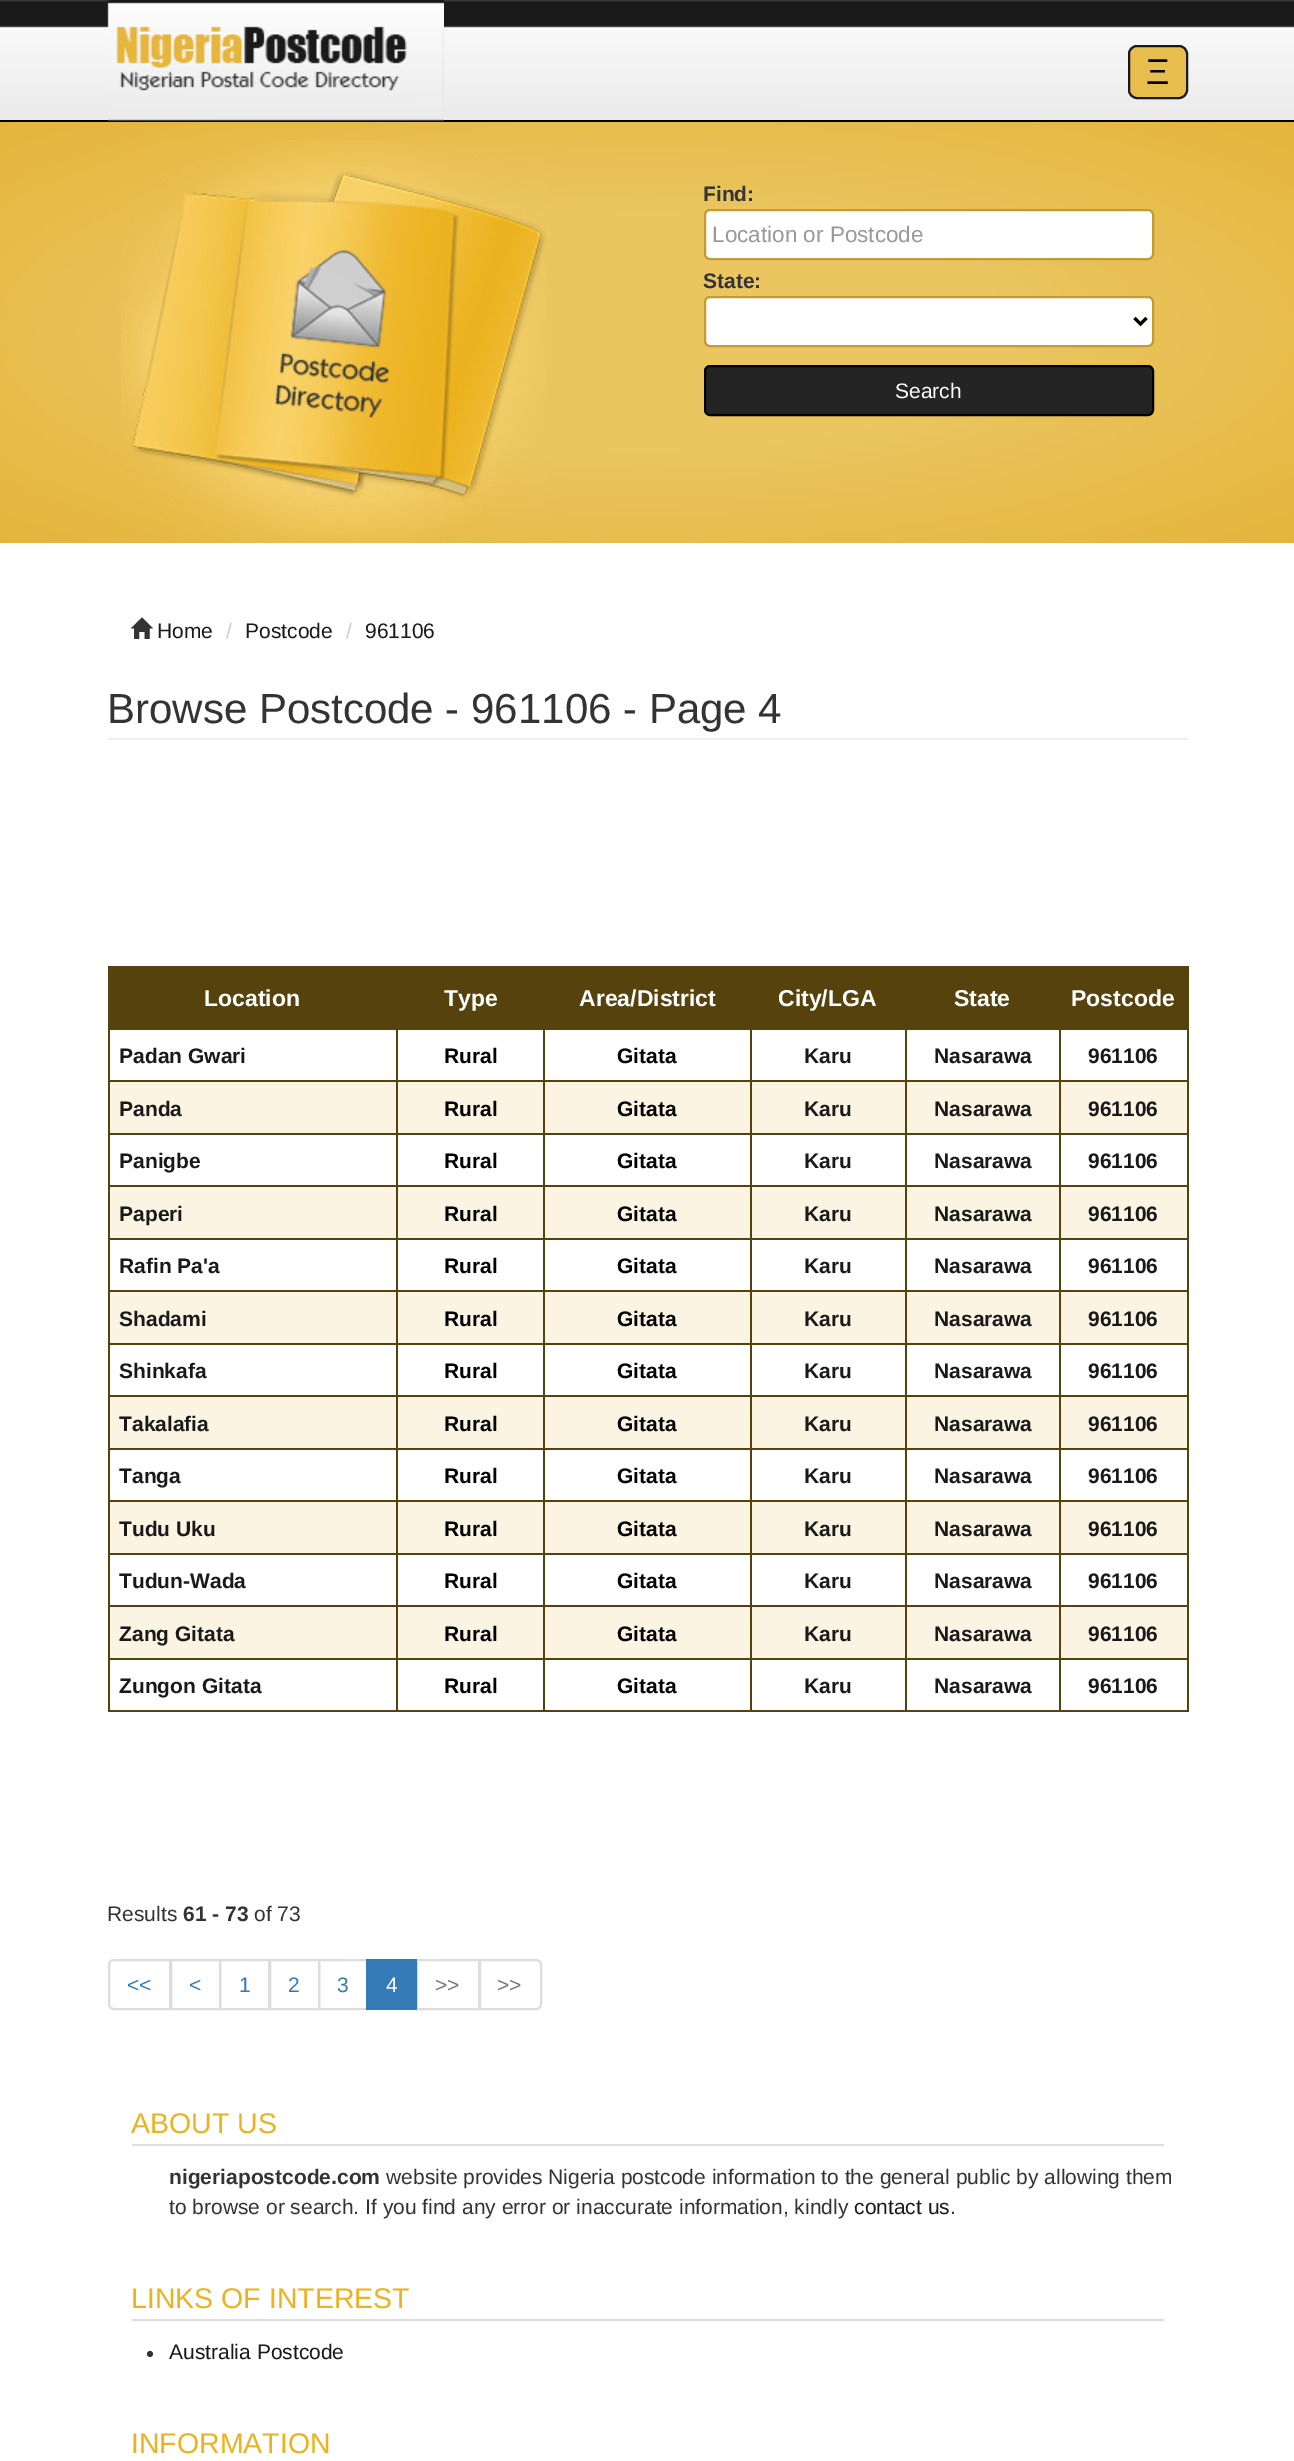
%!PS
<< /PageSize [1294 2461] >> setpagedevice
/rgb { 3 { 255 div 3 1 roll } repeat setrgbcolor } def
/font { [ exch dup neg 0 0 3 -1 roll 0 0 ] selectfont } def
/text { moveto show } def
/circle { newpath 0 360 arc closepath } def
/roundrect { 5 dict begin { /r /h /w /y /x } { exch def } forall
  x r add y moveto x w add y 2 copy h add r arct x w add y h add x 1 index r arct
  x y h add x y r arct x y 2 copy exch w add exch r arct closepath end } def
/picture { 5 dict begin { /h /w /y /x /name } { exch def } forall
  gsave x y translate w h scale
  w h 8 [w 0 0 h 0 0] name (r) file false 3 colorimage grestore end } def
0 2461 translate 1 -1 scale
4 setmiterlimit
255 255 255 rgb
0 0 1294 2461 rectfill
(img_01.rgb) 0 0 1294 120 picture
0 0 0 rgb
0 120 1294 2 rectfill
(img_02.rgb) 107 0 337 122 picture
231 189 77 rgb
1129 46 58 52 8 roundrect gsave fill grestore
25 25 25 rgb
2 setlinewidth
stroke
gsave 0 122 moveto 1294 0 rlineto 0 421 rlineto -1294 0 rlineto closepath clip newpath 647 332 translate 915 298 scale
<< /ShadingType 3 /ColorSpace /DeviceRGB /Coords [0 0 0 0 0 1] /Extend [true true] /Function << /FunctionType 3 /Domain [0 1] /Functions [<< /FunctionType 2 /Domain [0 1] /C0 [0.918 0.773 0.376] /C1 [0.918 0.773 0.376] /N 1 >> << /FunctionType 2 /Domain [0 1] /C0 [0.918 0.773 0.376] /C1 [0.898 0.71 0.231] /N 1 >>] /Bounds [0.4] /Encode [0 1 0 1] >> >> shfill grestore
(img_03.rgb) 121 140 425 403 picture
255 255 255 rgb
705 210 448 49 5 roundrect gsave fill grestore
194 155 52 rgb
stroke
255 255 255 rgb
705 297 448 49 5 roundrect gsave fill grestore
194 155 52 rgb
stroke
0 0 0 rgb
3 setlinewidth
1134.5 318 moveto 6 6 rlineto 6 -6 rlineto stroke
36 36 36 rgb
705 366 448 49 5 roundrect gsave fill grestore
0 0 0 rgb
2 setlinewidth
stroke
(img_04.rgb) 130 617 23 22 picture
238 238 238 rgb
108 738 1080 2 rectfill
86 66 12 rgb
108 966 953 62 rectfill
1061 968 126 60 rectfill
1059 966 129 2 rectfill
1059 1028 129 2 rectfill
1059 1080 129 2 rectfill
1059 1133 129 2 rectfill
1059 1185 129 2 rectfill
1059 1238 129 2 rectfill
1059 1290 129 2 rectfill
1059 1343 129 2 rectfill
1059 1395 129 2 rectfill
1059 1448 129 2 rectfill
1059 1500 129 2 rectfill
1059 1553 129 2 rectfill
1059 1605 129 2 rectfill
1059 1658 129 2 rectfill
1187 1658 2 54 rectfill
1187 1605 2 54 rectfill
1187 1553 2 54 rectfill
1187 1500 2 54 rectfill
1187 1448 2 54 rectfill
1187 1395 2 54 rectfill
1187 1343 2 54 rectfill
1187 1290 2 54 rectfill
1187 1238 2 54 rectfill
1187 1185 2 54 rectfill
1187 1133 2 54 rectfill
1187 1080 2 54 rectfill
1187 1028 2 54 rectfill
1187 966 2 63 rectfill
251 244 227 rgb
110 1082 1077 51 rectfill
110 1187 1077 51 rectfill
110 1292 1077 51 rectfill
110 1397 1077 51 rectfill
110 1502 1077 51 rectfill
110 1607 1077 51 rectfill
86 66 12 rgb
1059 1710 129 2 rectfill
1059 1658 2 54 rectfill
905 1658 156 2 rectfill
1059 1605 2 54 rectfill
905 1605 156 2 rectfill
1059 1553 2 54 rectfill
905 1553 156 2 rectfill
1059 1500 2 54 rectfill
905 1500 156 2 rectfill
1059 1448 2 54 rectfill
905 1448 156 2 rectfill
1059 1395 2 54 rectfill
905 1395 156 2 rectfill
1059 1343 2 54 rectfill
905 1343 156 2 rectfill
1059 1290 2 54 rectfill
905 1290 156 2 rectfill
1059 1238 2 54 rectfill
905 1238 156 2 rectfill
1059 1185 2 54 rectfill
905 1185 156 2 rectfill
1059 1133 2 54 rectfill
905 1133 156 2 rectfill
1059 1080 2 54 rectfill
905 1080 156 2 rectfill
1059 1028 2 54 rectfill
905 1028 156 2 rectfill
905 1710 156 2 rectfill
905 1658 2 54 rectfill
750 1658 156 2 rectfill
905 1605 2 54 rectfill
750 1605 156 2 rectfill
905 1553 2 54 rectfill
750 1553 156 2 rectfill
905 1500 2 54 rectfill
750 1500 156 2 rectfill
905 1448 2 54 rectfill
750 1448 156 2 rectfill
905 1395 2 54 rectfill
750 1395 156 2 rectfill
905 1343 2 54 rectfill
750 1343 156 2 rectfill
905 1290 2 54 rectfill
750 1290 156 2 rectfill
905 1238 2 54 rectfill
750 1238 156 2 rectfill
905 1185 2 54 rectfill
750 1185 156 2 rectfill
905 1133 2 54 rectfill
750 1133 156 2 rectfill
905 1080 2 54 rectfill
750 1080 156 2 rectfill
905 1028 2 54 rectfill
750 1028 156 2 rectfill
750 1710 156 2 rectfill
750 1658 2 54 rectfill
543 1658 209 2 rectfill
750 1605 2 54 rectfill
543 1605 209 2 rectfill
750 1553 2 54 rectfill
543 1553 209 2 rectfill
750 1500 2 54 rectfill
543 1500 209 2 rectfill
750 1448 2 54 rectfill
543 1448 209 2 rectfill
750 1395 2 54 rectfill
543 1395 209 2 rectfill
750 1343 2 54 rectfill
543 1343 209 2 rectfill
750 1290 2 54 rectfill
543 1290 209 2 rectfill
750 1238 2 54 rectfill
543 1238 209 2 rectfill
750 1185 2 54 rectfill
543 1185 209 2 rectfill
750 1133 2 54 rectfill
543 1133 209 2 rectfill
750 1080 2 54 rectfill
543 1080 209 2 rectfill
750 1028 2 54 rectfill
543 1028 209 2 rectfill
543 1710 209 2 rectfill
543 1658 2 54 rectfill
396 1658 149 2 rectfill
543 1605 2 54 rectfill
396 1605 149 2 rectfill
543 1553 2 54 rectfill
396 1553 149 2 rectfill
543 1500 2 54 rectfill
396 1500 149 2 rectfill
543 1448 2 54 rectfill
396 1448 149 2 rectfill
543 1395 2 54 rectfill
396 1395 149 2 rectfill
543 1343 2 54 rectfill
396 1343 149 2 rectfill
543 1290 2 54 rectfill
396 1290 149 2 rectfill
543 1238 2 54 rectfill
396 1238 149 2 rectfill
543 1185 2 54 rectfill
396 1185 149 2 rectfill
543 1133 2 54 rectfill
396 1133 149 2 rectfill
543 1080 2 54 rectfill
396 1080 149 2 rectfill
543 1028 2 54 rectfill
396 1028 149 2 rectfill
396 1710 149 2 rectfill
396 1658 2 54 rectfill
108 1658 290 2 rectfill
396 1605 2 54 rectfill
108 1605 290 2 rectfill
396 1553 2 54 rectfill
108 1553 290 2 rectfill
396 1500 2 54 rectfill
108 1500 290 2 rectfill
396 1448 2 54 rectfill
108 1448 290 2 rectfill
396 1395 2 54 rectfill
108 1395 290 2 rectfill
396 1343 2 54 rectfill
108 1343 290 2 rectfill
396 1290 2 54 rectfill
108 1290 290 2 rectfill
396 1238 2 54 rectfill
108 1238 290 2 rectfill
396 1185 2 54 rectfill
108 1185 290 2 rectfill
396 1133 2 54 rectfill
108 1133 290 2 rectfill
396 1080 2 54 rectfill
108 1080 290 2 rectfill
396 1028 2 54 rectfill
108 1028 290 2 rectfill
108 1710 290 2 rectfill
108 1658 2 54 rectfill
108 1605 2 54 rectfill
108 1553 2 54 rectfill
108 1500 2 54 rectfill
108 1448 2 54 rectfill
108 1395 2 54 rectfill
108 1343 2 54 rectfill
108 1290 2 54 rectfill
108 1238 2 54 rectfill
108 1185 2 54 rectfill
108 1133 2 54 rectfill
108 1080 2 54 rectfill
108 1028 2 54 rectfill
221 221 221 rgb
114 1960 moveto 56 0 rlineto 0 49 rlineto -56 0 rlineto -3 0 -5 -2 -5 -5 rcurveto 0 -39 rlineto 0 -3 2 -5 5 -5 rcurveto closepath stroke
171 1960 49 49 rectstroke
220 1960 49 49 rectstroke
270 1960 49 49 rectstroke
319 1960 48 49 rectstroke
417 1960 62 49 rectstroke
51 122 183 rgb
366 1959 51 51 rectfill
255 255 255 rgb
480 1960 moveto 56 0 rlineto 3 0 5 2 5 5 rcurveto 0 39 rlineto 0 3 -2 5 -5 5 rcurveto -56 0 rlineto closepath gsave fill grestore
221 221 221 rgb
stroke
132 2144 1032 2 rectfill
132 2319 1032 2 rectfill
51 51 51 rgb
150 2354 3 circle fill
/LiberationSans-Regular 36 font
0 0 0 rgb
(Ξ) 1146 84 text
/LiberationSans-Bold 21 font
51 51 59 rgb
(Find:) 703 201 text
/LiberationSans-Regular 22.5 font
153 153 153 rgb
(Location or Postcode) 712 242 text
/LiberationSans-Bold 21 font
51 51 59 rgb
(State:) 703 288 text
/LiberationSans-Regular 21 font
255 255 255 rgb
(Search) 895 398 text
25 25 25 rgb
(Home) 157 638 text
204 204 204 rgb
(/) 226 638 text
25 25 25 rgb
(Postcode) 245 638 text
204 204 204 rgb
(/) 346 638 text
25 25 25 rgb
(961106) 365 638 text
/LiberationSans-Regular 42 font
51 51 51 rgb
(Browse Postcode - 961106 - Page 4) 107 723 text
/LiberationSans-Bold 23 font
255 255 255 rgb
(Location) 204 1006 text
(Type) 444 1006 text
(Area/District) 579 1006 text
(City/LGA) 778 1006 text
(State) 954 1006 text
(Postcode) 1071 1006 text
/LiberationSans-Bold 21 font
25 25 25 rgb
(Padan Gwari) 119 1063 text
0 0 0 rgb
(Rural) 444 1063 text
(Gitata) 617 1063 text
25 25 25 rgb
(Karu) 804 1063 text
(Nasarawa) 934 1063 text
(961106) 1088 1063 text
(Panda) 119 1116 text
0 0 0 rgb
(Rural) 444 1116 text
(Gitata) 617 1116 text
25 25 25 rgb
(Karu) 804 1116 text
(Nasarawa) 934 1116 text
(961106) 1088 1116 text
(Panigbe) 119 1168 text
0 0 0 rgb
(Rural) 444 1168 text
(Gitata) 617 1168 text
25 25 25 rgb
(Karu) 804 1168 text
(Nasarawa) 934 1168 text
(961106) 1088 1168 text
(Paperi) 119 1221 text
0 0 0 rgb
(Rural) 444 1221 text
(Gitata) 617 1221 text
25 25 25 rgb
(Karu) 804 1221 text
(Nasarawa) 934 1221 text
(961106) 1088 1221 text
(Rafin Pa'a) 119 1273 text
0 0 0 rgb
(Rural) 444 1273 text
(Gitata) 617 1273 text
25 25 25 rgb
(Karu) 804 1273 text
(Nasarawa) 934 1273 text
(961106) 1088 1273 text
(Shadami) 119 1326 text
0 0 0 rgb
(Rural) 444 1326 text
(Gitata) 617 1326 text
25 25 25 rgb
(Karu) 804 1326 text
(Nasarawa) 934 1326 text
(961106) 1088 1326 text
(Shinkafa) 119 1378 text
0 0 0 rgb
(Rural) 444 1378 text
(Gitata) 617 1378 text
25 25 25 rgb
(Karu) 804 1378 text
(Nasarawa) 934 1378 text
(961106) 1088 1378 text
(Takalafia) 119 1431 text
0 0 0 rgb
(Rural) 444 1431 text
(Gitata) 617 1431 text
25 25 25 rgb
(Karu) 804 1431 text
(Nasarawa) 934 1431 text
(961106) 1088 1431 text
(Tanga) 119 1483 text
0 0 0 rgb
(Rural) 444 1483 text
(Gitata) 617 1483 text
25 25 25 rgb
(Karu) 804 1483 text
(Nasarawa) 934 1483 text
(961106) 1088 1483 text
(Tudu Uku) 119 1536 text
0 0 0 rgb
(Rural) 444 1536 text
(Gitata) 617 1536 text
25 25 25 rgb
(Karu) 804 1536 text
(Nasarawa) 934 1536 text
(961106) 1088 1536 text
(Tudun-Wada) 119 1588 text
0 0 0 rgb
(Rural) 444 1588 text
(Gitata) 617 1588 text
25 25 25 rgb
(Karu) 804 1588 text
(Nasarawa) 934 1588 text
(961106) 1088 1588 text
(Zang Gitata) 119 1641 text
0 0 0 rgb
(Rural) 444 1641 text
(Gitata) 617 1641 text
25 25 25 rgb
(Karu) 804 1641 text
(Nasarawa) 934 1641 text
(961106) 1088 1641 text
(Zungon Gitata) 119 1693 text
0 0 0 rgb
(Rural) 444 1693 text
(Gitata) 617 1693 text
25 25 25 rgb
(Karu) 804 1693 text
(Nasarawa) 934 1693 text
(961106) 1088 1693 text
/LiberationSans-Regular 21 font
51 51 51 rgb
(Results) 107 1921 text
/LiberationSans-Bold 21 font
(61 - 73) 183 1921 text
/LiberationSans-Regular 21 font
(of 73) 254 1921 text
51 122 183 rgb
(<<) 127 1992 text
(<) 189 1992 text
(1) 239 1992 text
(2) 288 1992 text
(3) 337 1992 text
255 255 255 rgb
(4) 386 1992 text
119 119 119 rgb
(>>) 435 1992 text
(>>) 497 1992 text
/LiberationSans-Regular 28.5 font
236 178 32 rgb
(ABOUT US) 131 2133 text
/LiberationSans-Bold 21 font
51 51 51 rgb
(nigeriapostcode.com) 169 2184 text
/LiberationSans-Regular 21 font
(website provides Nigeria postcode information to the general public by allowing them) 386 2184 text
(to browse or search. If you find any error or inaccurate information, kindly) 169 2214 text
25 25 25 rgb
(contact us) 854 2214 text
51 51 51 rgb
(.) 950 2214 text
/LiberationSans-Regular 28.5 font
236 178 32 rgb
(LINKS OF INTEREST) 131 2308 text
/LiberationSans-Regular 21 font
25 25 25 rgb
(Australia Postcode) 169 2359 text
/LiberationSans-Regular 28.5 font
236 178 32 rgb
(INFORMATION) 131 2453 text
showpage
